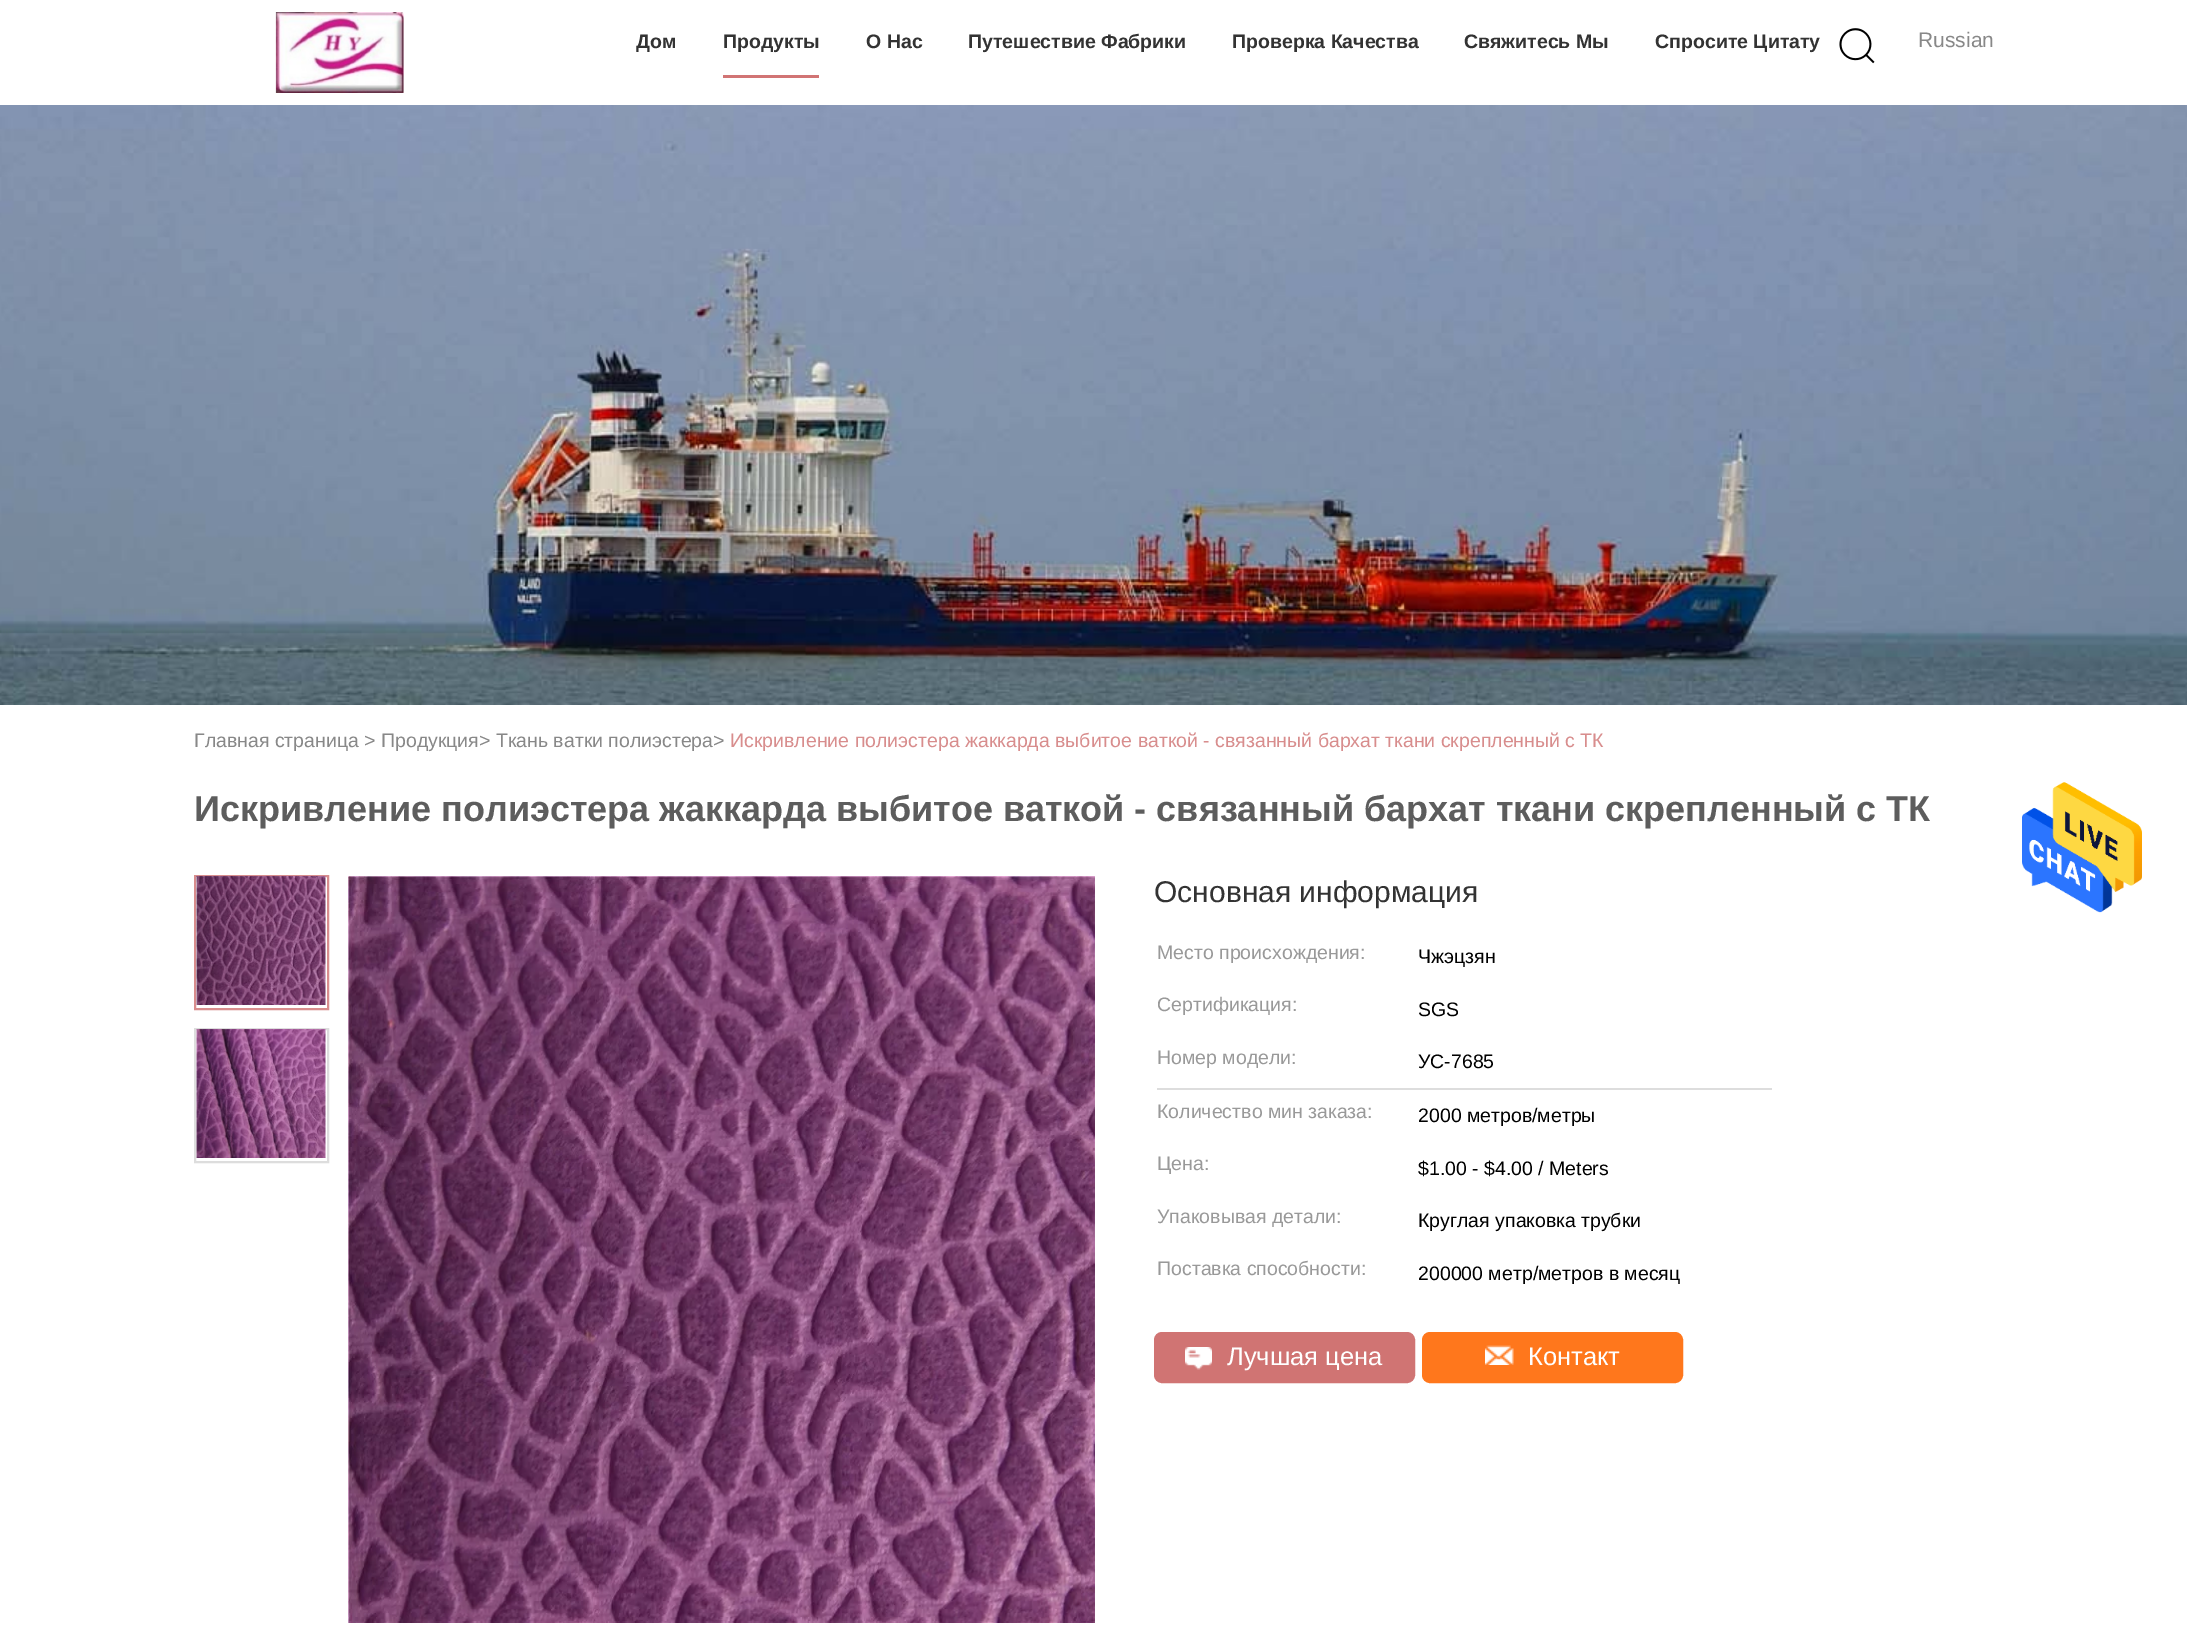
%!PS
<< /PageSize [2187 1638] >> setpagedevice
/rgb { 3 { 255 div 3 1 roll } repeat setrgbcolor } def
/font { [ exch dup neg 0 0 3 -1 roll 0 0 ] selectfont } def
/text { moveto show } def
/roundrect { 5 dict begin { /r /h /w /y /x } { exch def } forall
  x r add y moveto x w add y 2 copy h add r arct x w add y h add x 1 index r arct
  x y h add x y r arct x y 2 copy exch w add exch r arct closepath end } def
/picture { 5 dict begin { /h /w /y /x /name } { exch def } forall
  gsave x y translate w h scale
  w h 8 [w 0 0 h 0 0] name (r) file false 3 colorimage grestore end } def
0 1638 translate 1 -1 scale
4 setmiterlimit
255 255 255 rgb
0 0 2187 1638 rectfill
(img_01.rgb) 275 12 129 81 picture
209 116 116 rgb
723 75 96 3 rectfill
(img_02.rgb) 1839 28 36 36 picture
(img_03.rgb) 0 105 2187 600 picture
216 141 141 rgb
2 setlinewidth
195 876 133 133 rectstroke
(img_04.rgb) 196 876 130 129 picture
221 221 221 rgb
195 1029 133 133 rectstroke
(img_05.rgb) 196 1029 130 129 picture
(img_06.rgb) 348 876 747 747 picture
1157 1088 615 2 rectfill
208 116 115 rgb
1155 1333 259 49 7 roundrect gsave fill grestore
stroke
(img_07.rgb) 1185 1347 27 23 picture
255 119 28 rgb
1423 1333 259 49 7 roundrect gsave fill grestore
stroke
(img_08.rgb) 1485 1345 29 20 picture
(img_09.rgb) 2022 782 120 131 picture
/LiberationSans-Bold 19.5 font
51 51 51 rgb
(Дом) 636 48 text
(Продукты) 723 48 text
(О Нас) 866 48 text
(Путешествие Фабрики) 968 48 text
(Проверка Качества) 1232 48 text
(Свяжитесь Мы) 1464 48 text
(Спросите Цитату) 1655 48 text
/LiberationSans-Regular 21 font
136 136 136 rgb
(Russian) 1918 47 text
/LiberationSans-Regular 19.5 font
(Главная страница > Продукция> Ткань ватки полиэстера>) 194 747 text
216 141 141 rgb
(Искривление полиэстера жаккарда выбитое ваткой - связанный бархат ткани скрепленный с ТК) 730 747 text
/LiberationSans-Bold 36 font
93 93 93 rgb
(Искривление полиэстера жаккарда выбитое ваткой - связанный бархат ткани скрепленный с ТК) 194 821 text
/LiberationSans-Regular 30 font
51 51 51 rgb
(Основная информация) 1154 902 text
/LiberationSans-Regular 19.5 font
153 153 153 rgb
(Место происхождения:) 1157 959 text
0 0 0 rgb
(Чжэцзян) 1418 963 text
153 153 153 rgb
(Сертификация:) 1157 1011 text
0 0 0 rgb
(SGS) 1418 1016 text
153 153 153 rgb
(Номер модели:) 1157 1064 text
0 0 0 rgb
(УС-7685) 1418 1068 text
153 153 153 rgb
(Количество мин заказа:) 1157 1118 text
0 0 0 rgb
(2000 метров/метры) 1418 1122 text
153 153 153 rgb
(Цена:) 1157 1170 text
0 0 0 rgb
($1.00 - $4.00 / Meters) 1418 1175 text
153 153 153 rgb
(Упаковывая детали:) 1157 1223 text
0 0 0 rgb
(Круглая упаковка трубки) 1418 1227 text
153 153 153 rgb
(Поставка способности:) 1157 1275 text
0 0 0 rgb
(200000 метр/метров в месяц) 1418 1280 text
/LiberationSans-Regular 25.5 font
255 255 255 rgb
(Лучшая цена) 1227 1365 text
(Контакт) 1528 1365 text
showpage
